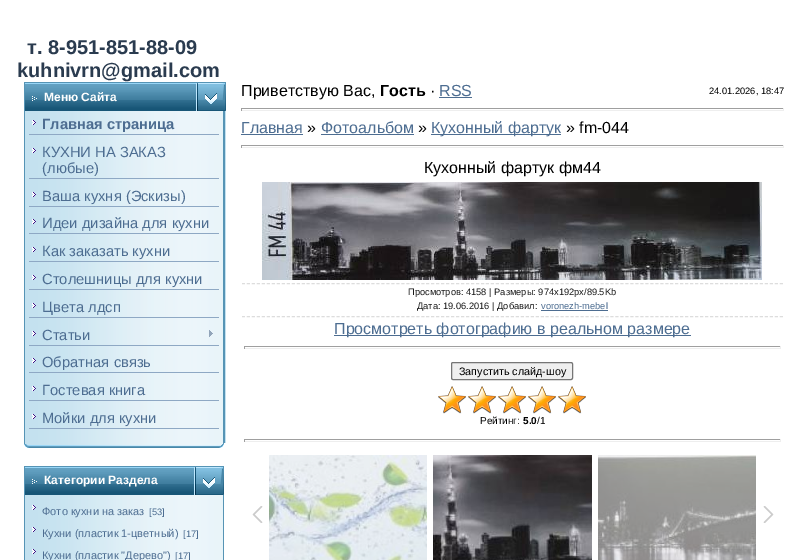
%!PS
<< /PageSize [811 560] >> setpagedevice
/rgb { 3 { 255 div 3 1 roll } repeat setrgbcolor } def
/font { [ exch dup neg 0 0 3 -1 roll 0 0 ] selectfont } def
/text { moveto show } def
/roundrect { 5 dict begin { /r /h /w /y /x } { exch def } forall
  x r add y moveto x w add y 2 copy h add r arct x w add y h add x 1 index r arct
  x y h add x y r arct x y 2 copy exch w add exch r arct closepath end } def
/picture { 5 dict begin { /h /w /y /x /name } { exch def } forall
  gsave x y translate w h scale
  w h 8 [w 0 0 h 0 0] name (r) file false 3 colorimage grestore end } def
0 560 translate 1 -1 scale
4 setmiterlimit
255 255 255 rgb
0 0 811 560 rectfill
(img_01.rgb) 25 82 171 29 picture
86 148 181 rgb
24 82 1 29 rectfill
(img_02.rgb) 32 96 5 5 picture
(img_03.rgb) 196 82 30 1 picture
(img_04.rgb) 196 83 30 28 picture
195 225 239 rgb
225 111 1 332 rectfill
(img_05.rgb) 24 111 201 332 picture
(img_06.rgb) 32 120 4 5 picture
142 168 196 rgb
29 134 190 1 rectfill
(img_06.rgb) 32 148 4 5 picture
29 178 190 1 rectfill
(img_06.rgb) 32 192 4 5 picture
29 206 190 1 rectfill
(img_06.rgb) 32 219 4 5 picture
29 233 190 1 rectfill
(img_06.rgb) 32 247 4 5 picture
29 261 190 1 rectfill
(img_06.rgb) 32 275 4 5 picture
29 289 190 1 rectfill
(img_06.rgb) 32 303 4 5 picture
29 317 190 1 rectfill
(img_06.rgb) 32 331 4 5 picture
29 345 190 1 rectfill
(img_07.rgb) 209 330 4 7 picture
(img_06.rgb) 32 358 4 5 picture
29 372 190 1 rectfill
(img_06.rgb) 32 386 4 5 picture
29 400 190 1 rectfill
(img_06.rgb) 32 414 4 5 picture
29 428 190 1 rectfill
(img_08.rgb) 24 443 200 5 picture
(img_09.rgb) 25 466 169 29 picture
86 148 181 rgb
24 466 1 29 rectfill
(img_10.rgb) 32 479 5 5 picture
(img_03.rgb) 194 466 30 1 picture
(img_04.rgb) 194 467 30 28 picture
(img_11.rgb) 24 495 200 65 picture
(img_06.rgb) 32 505 4 5 picture
(img_06.rgb) 32 527 4 5 picture
(img_06.rgb) 32 549 4 5 picture
77 109 145 rgb
439 97 33 1 rectfill
159 159 159 rgb
241 108 543 1 rectfill
238 238 238 rgb
783 108 1 3 rectfill
241 110 543 1 rectfill
159 159 159 rgb
241 108 1 3 rectfill
77 109 145 rgb
241 134 62 1 rectfill
321 134 93 1 rectfill
431 134 130 1 rectfill
159 159 159 rgb
241 145 543 1 rectfill
238 238 238 rgb
783 145 1 3 rectfill
241 147 543 1 rectfill
159 159 159 rgb
241 145 1 3 rectfill
(img_12.rgb) 262 182 500 98 picture
221 221 221 rgb
[3 1.98] 0 setdash
242 283.5 moveto 541 0 rlineto stroke
242 316.5 moveto 541 0 rlineto stroke
77 109 145 rgb
541 310 67 1 rectfill
334 335 357 1 rectfill
159 159 159 rgb
244 346 537 1 rectfill
238 238 238 rgb
780 346 1 3 rectfill
244 348 537 1 rectfill
159 159 159 rgb
244 346 1 3 rectfill
239 239 239 rgb
451.5 362.5 121 17 1.5 roundrect gsave fill grestore
118 118 118 rgb
[] 0 setdash
stroke
(img_13.rgb) 438 386 148 28 picture
(img_14.rgb) 438 386 148 28 picture
159 159 159 rgb
244 439 537 1 rectfill
238 238 238 rgb
780 439 1 3 rectfill
244 441 537 1 rectfill
159 159 159 rgb
244 439 1 3 rectfill
(img_15.rgb) 252 506 11 17 picture
(img_16.rgb) 269 455 158 105 picture
(img_17.rgb) 433 455 159 105 picture
(img_18.rgb) 598 455 158 105 picture
(img_19.rgb) 763 506 11 17 picture
/LiberationSans-Bold 20 font
42 59 79 rgb
(т. 8-951-851-88-09) 27 54 text
(kuhnivrn@gmail.com) 17 77 text
/LiberationSans-Bold 12 font
255 255 255 rgb
(Меню Сайта) 44 101 text
/LiberationSans-Bold 14.75 font
77 109 145 rgb
(Главная страница) 42 129 text
/LiberationSans-Regular 14.75 font
(КУХНИ НА ЗАКАЗ) 42 157 text
(\(любые\)) 42 173 text
(Ваша кухня \(Эскизы\)) 42 201 text
(Идеи дизайна для кухни) 42 228 text
(Как заказать кухни) 42 256 text
(Столешницы для кухни) 42 284 text
(Цвета лдсп) 42 312 text
(Статьи) 42 340 text
(Обратная связь) 42 367 text
(Гостевая книга) 42 395 text
(Мойки для кухни) 42 423 text
/LiberationSans-Bold 12 font
255 255 255 rgb
(Категории Раздела) 44 484 text
/LiberationSans-Regular 11 font
77 109 145 rgb
(Фото кухни на заказ) 42 515 text
/LiberationSans-Regular 9.3 font
([53]) 149 515 text
/LiberationSans-Regular 11 font
(Кухни \(пластик 1-цветный\)) 42 537 text
/LiberationSans-Regular 9.3 font
([17]) 183 537 text
/LiberationSans-Regular 11 font
(Кухни \(пластик "Дерево"\)) 42 559 text
/LiberationSans-Regular 9.3 font
([17]) 175 559 text
/LiberationSans-Regular 16 font
0 0 0 rgb
(Приветствую Вас,) 241 96 text
/LiberationSans-Bold 16 font
(Гость) 380 96 text
/LiberationSans-Regular 16 font
(·) 430 96 text
77 109 145 rgb
(RSS) 439 96 text
/LiberationSans-Regular 9.3 font
0 0 0 rgb
(24.01.2026, 18:47) 709 94 text
/LiberationSans-Regular 16 font
77 109 145 rgb
(Главная) 241 133 text
0 0 0 rgb
(») 307 133 text
77 109 145 rgb
(Фотоальбом) 321 133 text
0 0 0 rgb
(») 418 133 text
77 109 145 rgb
(Кухонный фартук) 431 133 text
0 0 0 rgb
(» fm-044) 566 133 text
(Кухонный фартук фм44) 424 173 text
/LiberationSans-Regular 9.3 font
26 26 26 rgb
(Просмотров: 4158 | Размеры: 974x192px/89.5Kb) 408 295 text
(Дата: 19.06.2016 | Добавил:) 417 309 text
77 109 145 rgb
(voronezh-mebel) 541 309 text
/LiberationSans-Regular 16 font
(Просмотреть фотографию в реальном размере) 334 334 text
/LiberationSans-Regular 10.75 font
0 0 0 rgb
(Запустить слайд-шоу) 459 375 text
/LiberationSans-Regular 10 font
(Рейтинг:) 480 424 text
/LiberationSans-Bold 10 font
(5.0) 523 424 text
/LiberationSans-Regular 10 font
(/1) 537 424 text
showpage
